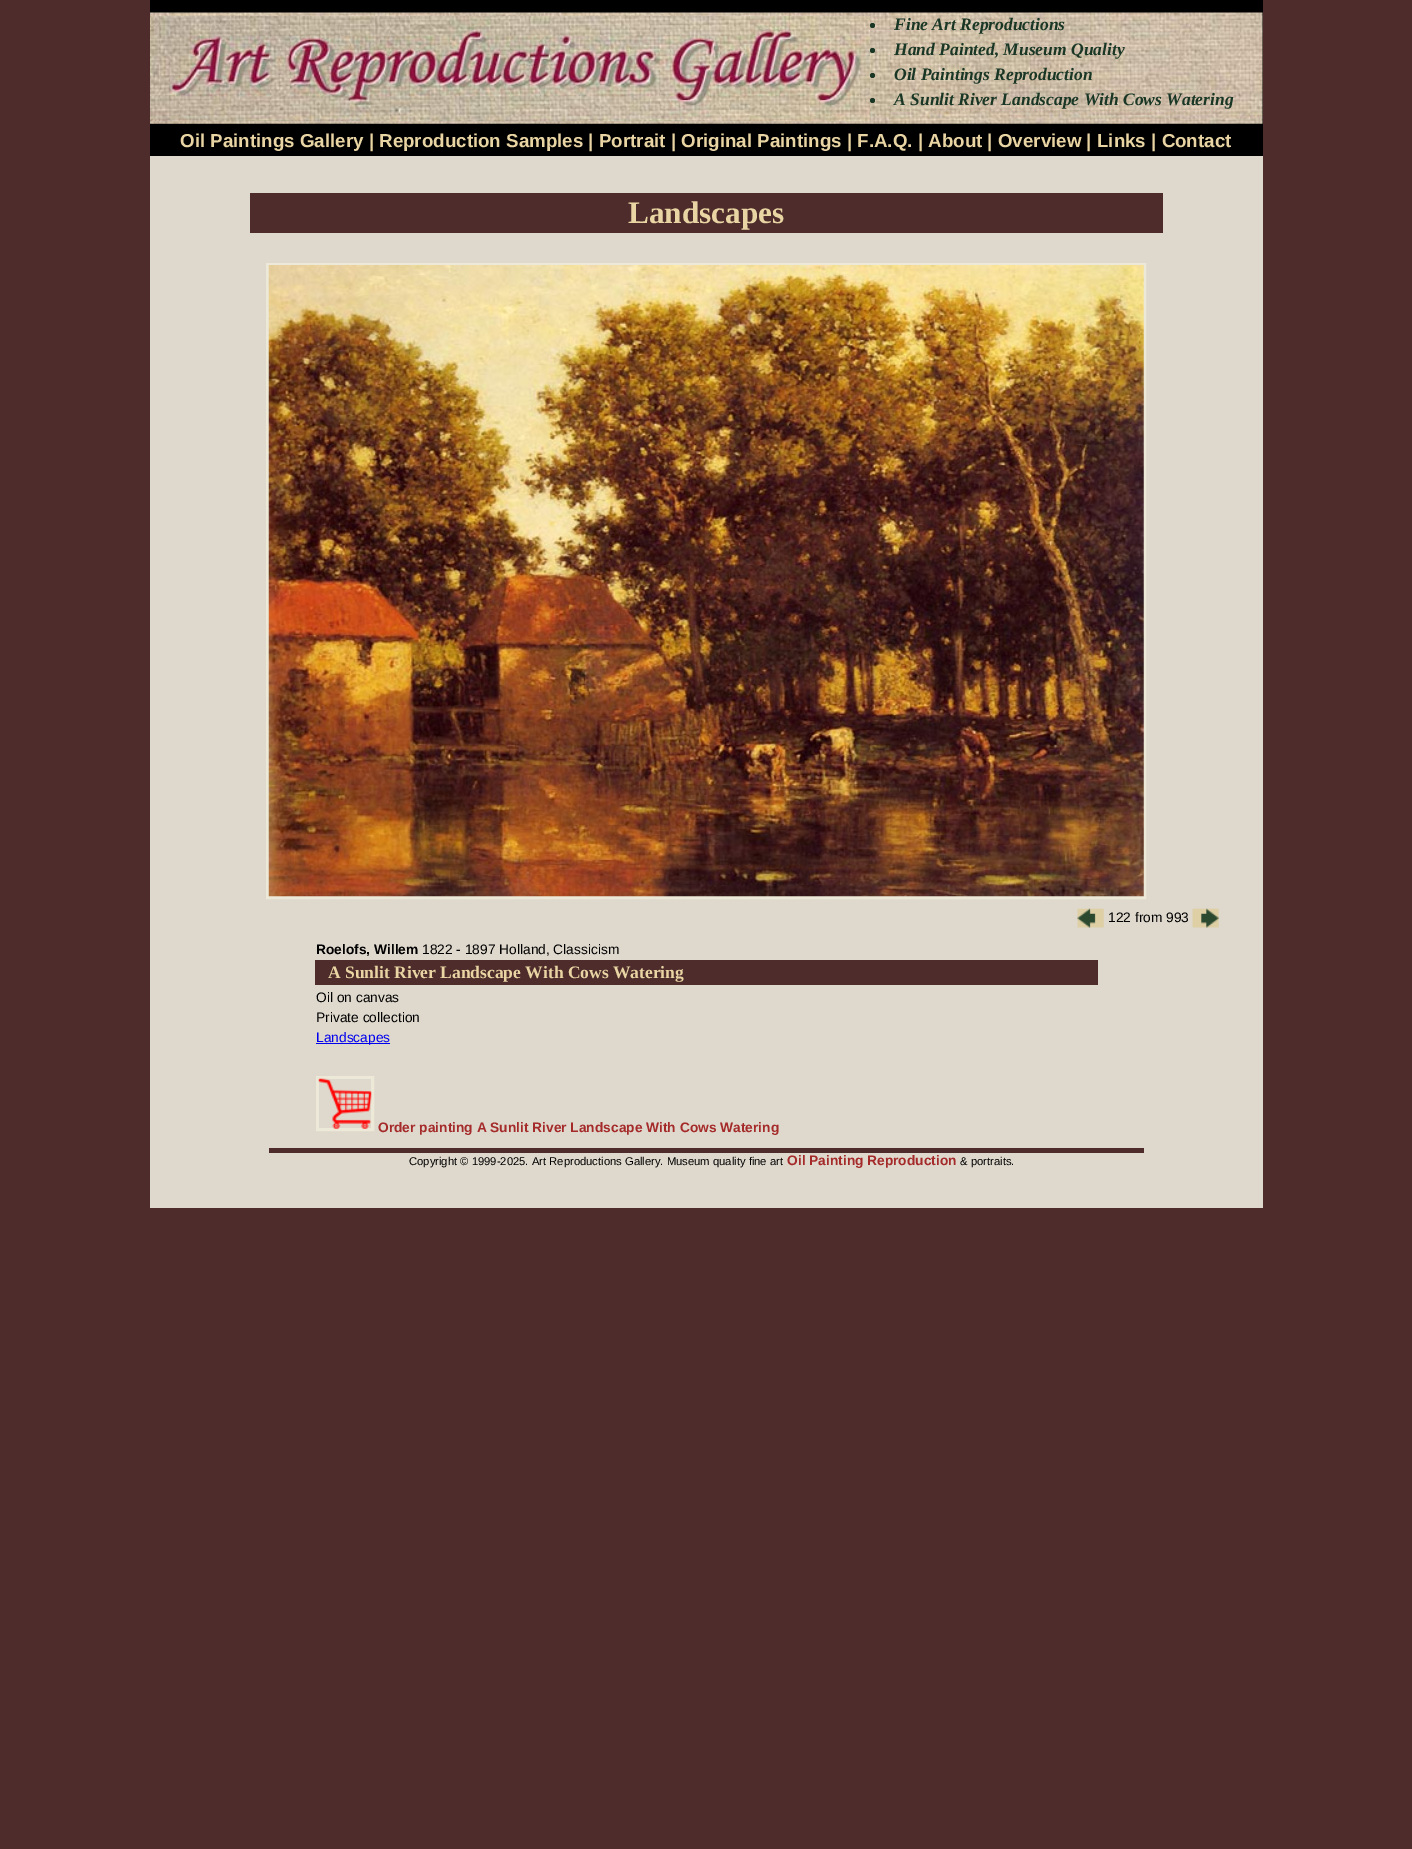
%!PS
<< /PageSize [1412 1849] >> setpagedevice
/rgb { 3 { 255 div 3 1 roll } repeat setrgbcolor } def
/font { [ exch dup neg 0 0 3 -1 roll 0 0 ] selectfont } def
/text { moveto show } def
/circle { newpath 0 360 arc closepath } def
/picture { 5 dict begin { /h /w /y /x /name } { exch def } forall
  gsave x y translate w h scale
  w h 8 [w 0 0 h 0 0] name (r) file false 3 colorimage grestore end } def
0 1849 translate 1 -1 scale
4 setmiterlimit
77 44 43 rgb
0 0 1412 1849 rectfill
0 0 0 rgb
150 0 1113 156 rectfill
(img_01.rgb) 150 12 720 112 picture
(img_02.rgb) 150 16 720 106 picture
(img_03.rgb) 870 12 393 112 picture
26 55 38 rgb
872.5 25.5 2.5 circle fill
872.5 50.5 2.5 circle fill
872.5 75.5 2.5 circle fill
872.5 100.5 2.5 circle fill
223 217 205 rgb
150 156 1113 1052 rectfill
77 44 43 rgb
250 193 913 40 rectfill
236 233 216 rgb
3 setlinewidth
267.5 264.5 877 633 rectstroke
(img_04.rgb) 268 265 876 632 picture
(img_05.rgb) 1077 908 27 20 picture
(img_06.rgb) 1192 908 27 20 picture
77 44 43 rgb
315 960 783 25 rectfill
0 0 238 rgb
316 1043 74 1 rectfill
236 233 216 rgb
317.5 1077.5 55 52 rectstroke
(img_07.rgb) 318 1078 54 51 picture
77 44 43 rgb
269 1148 875 5 rectfill
/LiberationSerif-BoldItalic 17.5 font
26 55 38 rgb
(Fine Art Reproductions) 894 30 text
(Hand Painted, Museum Quality) 894 55 text
(Oil Paintings Reproduction) 894 80 text
(A Sunlit River Landscape With Cows Watering) 894 105 text
/LiberationSans-Bold 18.75 font
233 213 163 rgb
(Oil Paintings Gallery | Reproduction Samples | Portrait | Original Paintings | F.A.Q. | About | Overview | Links | Contact) 180 147 text
/LiberationSerif-Bold 31.25 font
(Landscapes) 628 223 text
/LiberationSans-Regular 13.75 font
0 0 0 rgb
(122 from 993) 1108 922 text
/LiberationSans-Bold 13.75 font
(Roelofs, Willem) 316 954 text
/LiberationSans-Regular 13.75 font
(1822 - 1897 Holland, Classicism) 422 954 text
/LiberationSerif-Bold 17.5 font
233 213 163 rgb
(A Sunlit River Landscape With Cows Watering) 328 978 text
/LiberationSans-Regular 13.75 font
0 0 0 rgb
(Oil on canvas) 316 1002 text
(Private collection) 316 1022 text
0 0 238 rgb
(Landscapes) 316 1042 text
/LiberationSans-Bold 13.75 font
165 42 42 rgb
(Order painting A Sunlit River Landscape With Cows Watering) 378 1132 text
/LiberationSans-Regular 11.25 font
0 0 0 rgb
(Copyright © 1999-2025. Art Reproductions Gallery. Museum quality fine art) 409 1165 text
/LiberationSans-Bold 13.75 font
165 42 42 rgb
(Oil Painting Reproduction) 787 1165 text
/LiberationSans-Regular 11.25 font
0 0 0 rgb
(& portraits.) 960 1165 text
showpage
